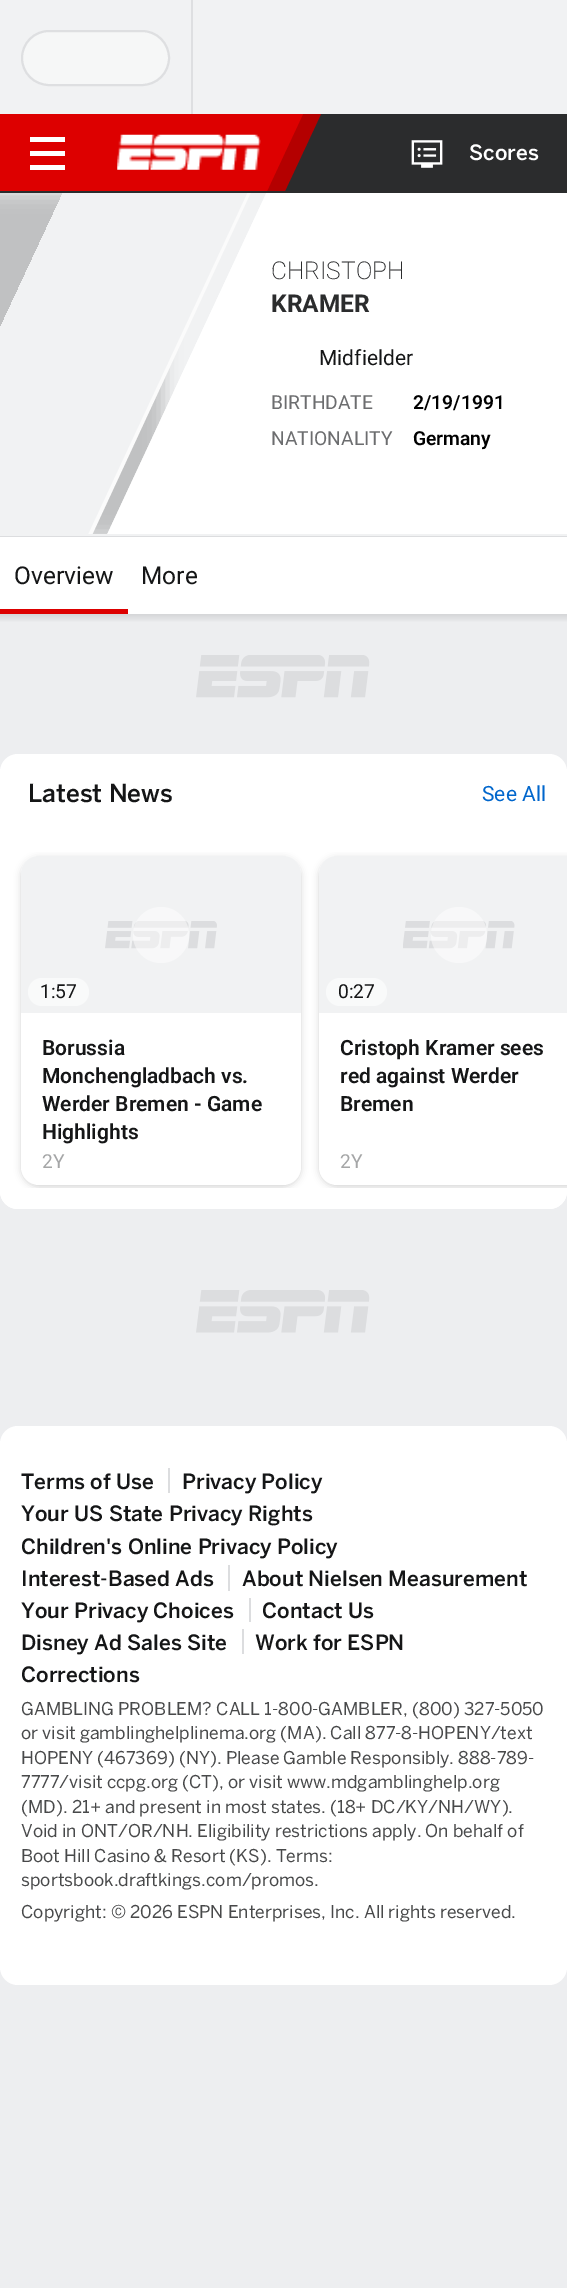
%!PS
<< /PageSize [567 2288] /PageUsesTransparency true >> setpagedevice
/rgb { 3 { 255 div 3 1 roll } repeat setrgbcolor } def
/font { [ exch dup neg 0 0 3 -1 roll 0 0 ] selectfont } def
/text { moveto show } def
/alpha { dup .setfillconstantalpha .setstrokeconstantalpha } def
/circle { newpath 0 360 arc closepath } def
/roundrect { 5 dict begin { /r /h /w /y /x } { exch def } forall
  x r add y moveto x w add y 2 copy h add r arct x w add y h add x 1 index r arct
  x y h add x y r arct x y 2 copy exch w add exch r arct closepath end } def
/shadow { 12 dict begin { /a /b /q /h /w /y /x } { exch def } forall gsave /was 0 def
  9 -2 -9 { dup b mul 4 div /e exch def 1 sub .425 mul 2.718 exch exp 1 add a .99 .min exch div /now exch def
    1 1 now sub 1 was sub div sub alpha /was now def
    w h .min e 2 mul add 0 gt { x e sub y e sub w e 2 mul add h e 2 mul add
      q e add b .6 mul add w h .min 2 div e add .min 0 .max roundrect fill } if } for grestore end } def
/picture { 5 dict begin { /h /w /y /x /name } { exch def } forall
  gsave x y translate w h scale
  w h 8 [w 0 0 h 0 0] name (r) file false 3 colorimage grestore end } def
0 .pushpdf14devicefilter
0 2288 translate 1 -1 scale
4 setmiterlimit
237 238 240 rgb
0 0 567 2288 rectfill
241 242 243 rgb
0 0 567 114 rectfill
222 223 225 rgb
191 0 2 114 rectfill
246 247 247 rgb
22 31 147 54 27 roundrect gsave fill grestore
222 223 225 rgb
2 setlinewidth
stroke
220 221 223 rgb
0 536 567 1 rectfill
241 242 243 rgb
0 534 567 2 rectfill
0 193 267 341 rectfill
gsave
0 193 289 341 rectclip
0 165 moveto 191 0 rlineto 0 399 rlineto -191 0 rlineto closepath 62.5 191.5 moveto 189 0 rlineto -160 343 rlineto -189 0 rlineto closepath eoclip newpath
72 73 73 rgb
-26 193 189 343 0 9 0.3 shadow
grestore
43 44 45 rgb
0 114 567 79 rectfill
180 0 0 rgb
93 114 moveto 228 0 rlineto -36 77 rlineto -228 0 rlineto closepath fill
221 0 0 rgb
-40 114 moveto 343 0 rlineto -36 77 rlineto -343 0 rlineto closepath fill
(img_01.rgb) 117 134 144 36 picture
255 255 255 rgb
30 151 35 5 rectfill
30 137 35 5 rectfill
30 165 35 5 rectfill
(img_02.rgb) 411 140 32 28 picture
289 193 278 341 rectfill
gsave
0 193 289 341 rectclip
251 251 251 rgb
248 192 moveto 3 0 rlineto -159 343 rlineto -4 0 rlineto closepath fill
255 255 255 rgb
267 192 moveto 184 0 rlineto -160 343 rlineto -184 0 rlineto closepath fill
0.9 alpha
267 192 moveto 184 0 rlineto -160 343 rlineto -184 0 rlineto closepath fill
grestore
0 537 567 77 rectfill
221 0 0 rgb
0 609 128 5 rectfill
gsave 0 614 moveto 567 0 rlineto 0 8 rlineto -567 0 rlineto closepath clip newpath
<< /ShadingType 2 /ColorSpace /DeviceRGB /Coords [284 614 284 623] /Extend [true true] /Function << /FunctionType 2 /Domain [0 1] /C0 [0.835 0.839 0.847] /C1 [0.929 0.933 0.941] /N 1 >> >> shfill grestore
(img_03.rgb) 196 655 174 43 picture
255 255 255 rgb
0 754 567 455 18 roundrect fill
0 831 567 378 18 roundrect fill
gsave
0 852 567 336 rectclip
0 0 0 rgb
21 858 280 329 18 3.5 0.16 shadow
grestore
21 856 280 329 18 roundrect fill
241 242 243 rgb
39 856 moveto 244 0 rlineto 10 0 18 8 18 18 rcurveto 0 139 rlineto -280 0 rlineto 0 -139 rlineto 0 -10 8 -18 18 -18 rcurveto closepath fill
(img_04.rgb) 105 921 112 28 picture
0.48 alpha
255 255 255 rgb
161 935 28 circle fill
1 alpha
249 250 250 rgb
28 978 61 28 14 roundrect fill
gsave
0 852 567 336 rectclip
0 0 0 rgb
319 858 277 329 18 3.5 0.16 shadow
grestore
255 255 255 rgb
337 856 moveto 230 0 rlineto 0 329 rlineto -230 0 rlineto -10 0 -18 -8 -18 -18 rcurveto 0 -293 rlineto 0 -10 8 -18 18 -18 rcurveto closepath fill
241 242 243 rgb
337 856 moveto 230 0 rlineto 0 157 rlineto -248 0 rlineto 0 -139 rlineto 0 -10 8 -18 18 -18 rcurveto closepath fill
(img_05.rgb) 403 921 112 28 picture
0.48 alpha
255 255 255 rgb
459 935 28 circle fill
1 alpha
249 250 250 rgb
326 978 61 28 14 roundrect fill
(img_06.rgb) 196 1290 174 43 picture
255 255 255 rgb
0 1426 567 559 18 roundrect fill
220 221 223 rgb
168 1468 2 25 rectfill
228 1565 2 26 rectfill
249 1598 2 24 rectfill
242 1629 2 25 rectfill
/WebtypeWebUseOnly-Medium 21 font
255 255 255 rgb
(Scores) 469 160 text
/Roboto-ExtraLight 24.5 font
43 44 45 rgb
(CHRISTOPH) 271 279 text
/Roboto-Bold 24.5 font
(KRAMER) 271 312 text
/Roboto-Regular 21 font
21 22 23 rgb
(Midfielder) 319 365 text
/Roboto-Regular 19.25 font
108 109 111 rgb
(BIRTHDATE) 271 409 text
/Roboto-SemiBold 19.25 font
0 0 0 rgb
(2/19/1991) 413 409 text
/Roboto-Regular 19.25 font
108 109 111 rgb
(NATIONALITY) 271 445 text
/Roboto-SemiBold 19.25 font
0 0 0 rgb
(Germany) 413 445 text
/Roboto-Regular 24.5 font
21 22 23 rgb
(Overview) 14 584 text
(More) 141 584 text
/WebtypeWebUseOnly-Medium 24.5 font
(Latest News) 28 802 text
/Roboto-Regular 21 font
0 102 204 rgb
(See All) 482 801 text
/Roboto-Regular 19.25 font
21 22 23 rgb
(1:57) 40 998 text
/Roboto-SemiBold 21 font
(Borussia) 42 1055 text
(Monchengladbach vs.) 42 1083 text
(Werder Bremen - Game) 42 1111 text
(Highlights) 42 1139 text
/Roboto-Regular 19.25 font
165 166 167 rgb
(2Y) 42 1168 text
21 22 23 rgb
(0:27) 338 998 text
/Roboto-SemiBold 21 font
(Cristoph Kramer sees) 340 1055 text
(red against Werder) 340 1083 text
(Bremen) 340 1111 text
/Roboto-Regular 19.25 font
165 166 167 rgb
(2Y) 340 1168 text
/WebtypeWebUseOnly-Medium 21 font
21 22 23 rgb
(Terms of Use) 21 1489 text
(Privacy Policy) 182 1489 text
(Your US State Privacy Rights) 21 1521 text
(Children's Online Privacy Policy) 21 1554 text
(Interest-Based Ads) 21 1586 text
(About Nielsen Measurement) 242 1586 text
(Your Privacy Choices) 21 1618 text
(Contact Us) 262 1618 text
(Disney Ad Sales Site) 21 1650 text
(Work for ESPN) 255 1650 text
(Corrections) 21 1682 text
/WebtypeWebUseOnly-Regular 17.5 font
72 73 74 rgb
(GAMBLING PROBLEM? CALL 1-800-GAMBLER, \(800\) 327-5050) 21 1715 text
(or visit gamblinghelplinema.org \(MA\). Call 877-8-HOPENY/text) 21 1739 text
(HOPENY \(467369\) \(NY\). Please Gamble Responsibly. 888-789-) 21 1764 text
(7777/visit ccpg.org \(CT\), or visit www.mdgamblinghelp.org) 21 1788 text
(\(MD\). 21+ and present in most states. \(18+ DC/KY/NH/WY\).) 21 1813 text
(Void in ONT/OR/NH. Eligibility restrictions apply. On behalf of) 21 1837 text
(Boot Hill Casino & Resort \(KS\). Terms:) 21 1862 text
(sportsbook.draftkings.com/promos.) 21 1886 text
(Copyright: © 2026 ESPN Enterprises, Inc. All rights reserved.) 21 1918 text
.poppdf14devicefilter showpage
